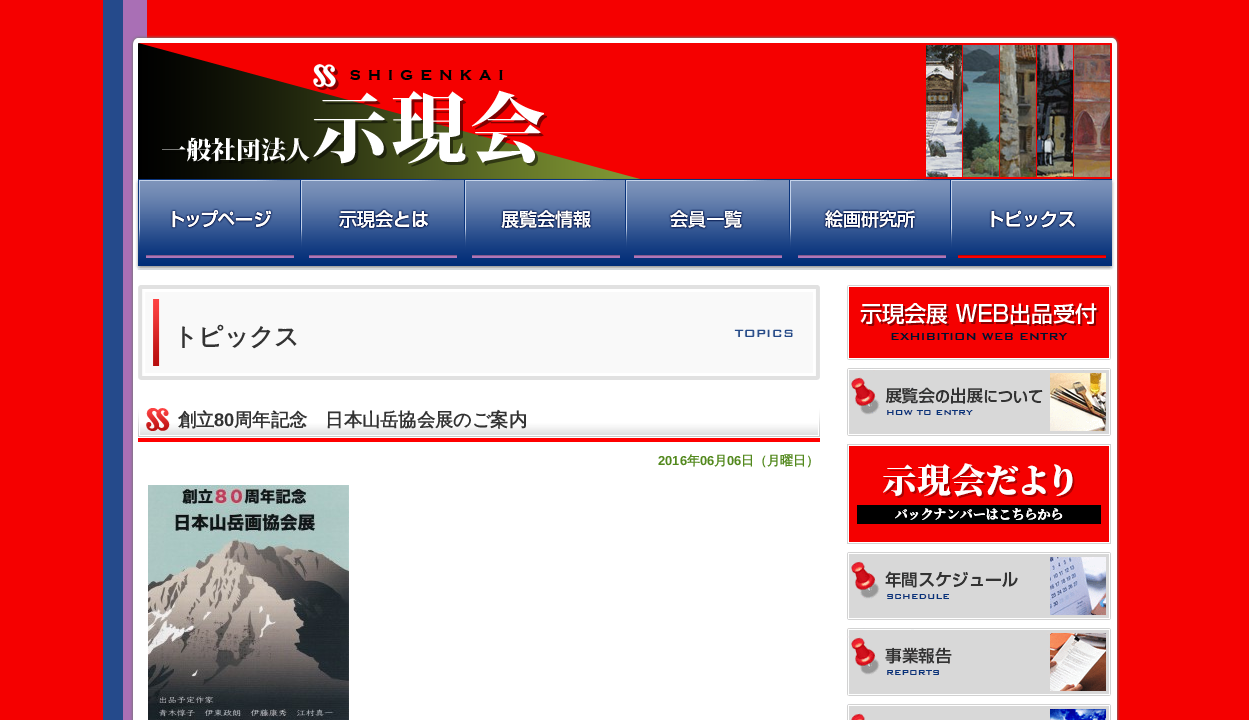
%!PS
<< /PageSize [1249 720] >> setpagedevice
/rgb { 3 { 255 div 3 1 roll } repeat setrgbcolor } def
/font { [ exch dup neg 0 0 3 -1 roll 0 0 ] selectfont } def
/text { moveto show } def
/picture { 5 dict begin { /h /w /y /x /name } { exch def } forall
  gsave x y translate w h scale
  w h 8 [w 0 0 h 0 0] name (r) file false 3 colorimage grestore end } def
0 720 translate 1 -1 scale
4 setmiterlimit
245 0 0 rgb
0 0 1249 720 rectfill
(img_01.rgb) 103 0 44 720 picture
(img_02.rgb) 130 35 990 144 picture
(img_03.rgb) 130 179 990 91 picture
(img_04.rgb) 135 179 165 91 picture
(img_05.rgb) 300 179 163 91 picture
(img_06.rgb) 463 179 162 91 picture
(img_07.rgb) 625 179 163 91 picture
(img_08.rgb) 788 179 162 91 picture
(img_09.rgb) 950 179 165 91 picture
(img_10.rgb) 130 270 990 450 picture
(img_11.rgb) 138 285 682 95 picture
(img_12.rgb) 138 408 682 34 picture
(img_13.rgb) 148 485 201 235 picture
(img_14.rgb) 847 285 264 75 picture
(img_15.rgb) 847 368 264 68 picture
(img_16.rgb) 847 444 264 100 picture
(img_17.rgb) 847 552 264 68 picture
(img_18.rgb) 847 628 264 68 picture
(img_19.rgb) 847 704 264 16 picture
/WenQuanYiZenHei-Bold 24.75 font
51 51 51 rgb
(トピックス) 173 345 text
/WenQuanYiZenHei-Bold 18.25 font
(創立) 178 426 text
/LiberationSans-Bold 18.25 font
(80) 214 426 text
/WenQuanYiZenHei-Bold 18.25 font
(周年記念　日本山岳協会展のご案内) 234 426 text
/LiberationSans-Bold 13 font
83 137 30 rgb
(2016) 658 465 text
/WenQuanYiZenHei-Bold 13 font
(年) 687 465 text
/LiberationSans-Bold 13 font
(06) 700 465 text
/WenQuanYiZenHei-Bold 13 font
(月) 714 465 text
/LiberationSans-Bold 13 font
(06) 727 465 text
/WenQuanYiZenHei-Bold 13 font
(日（月曜日）) 741 465 text
showpage
